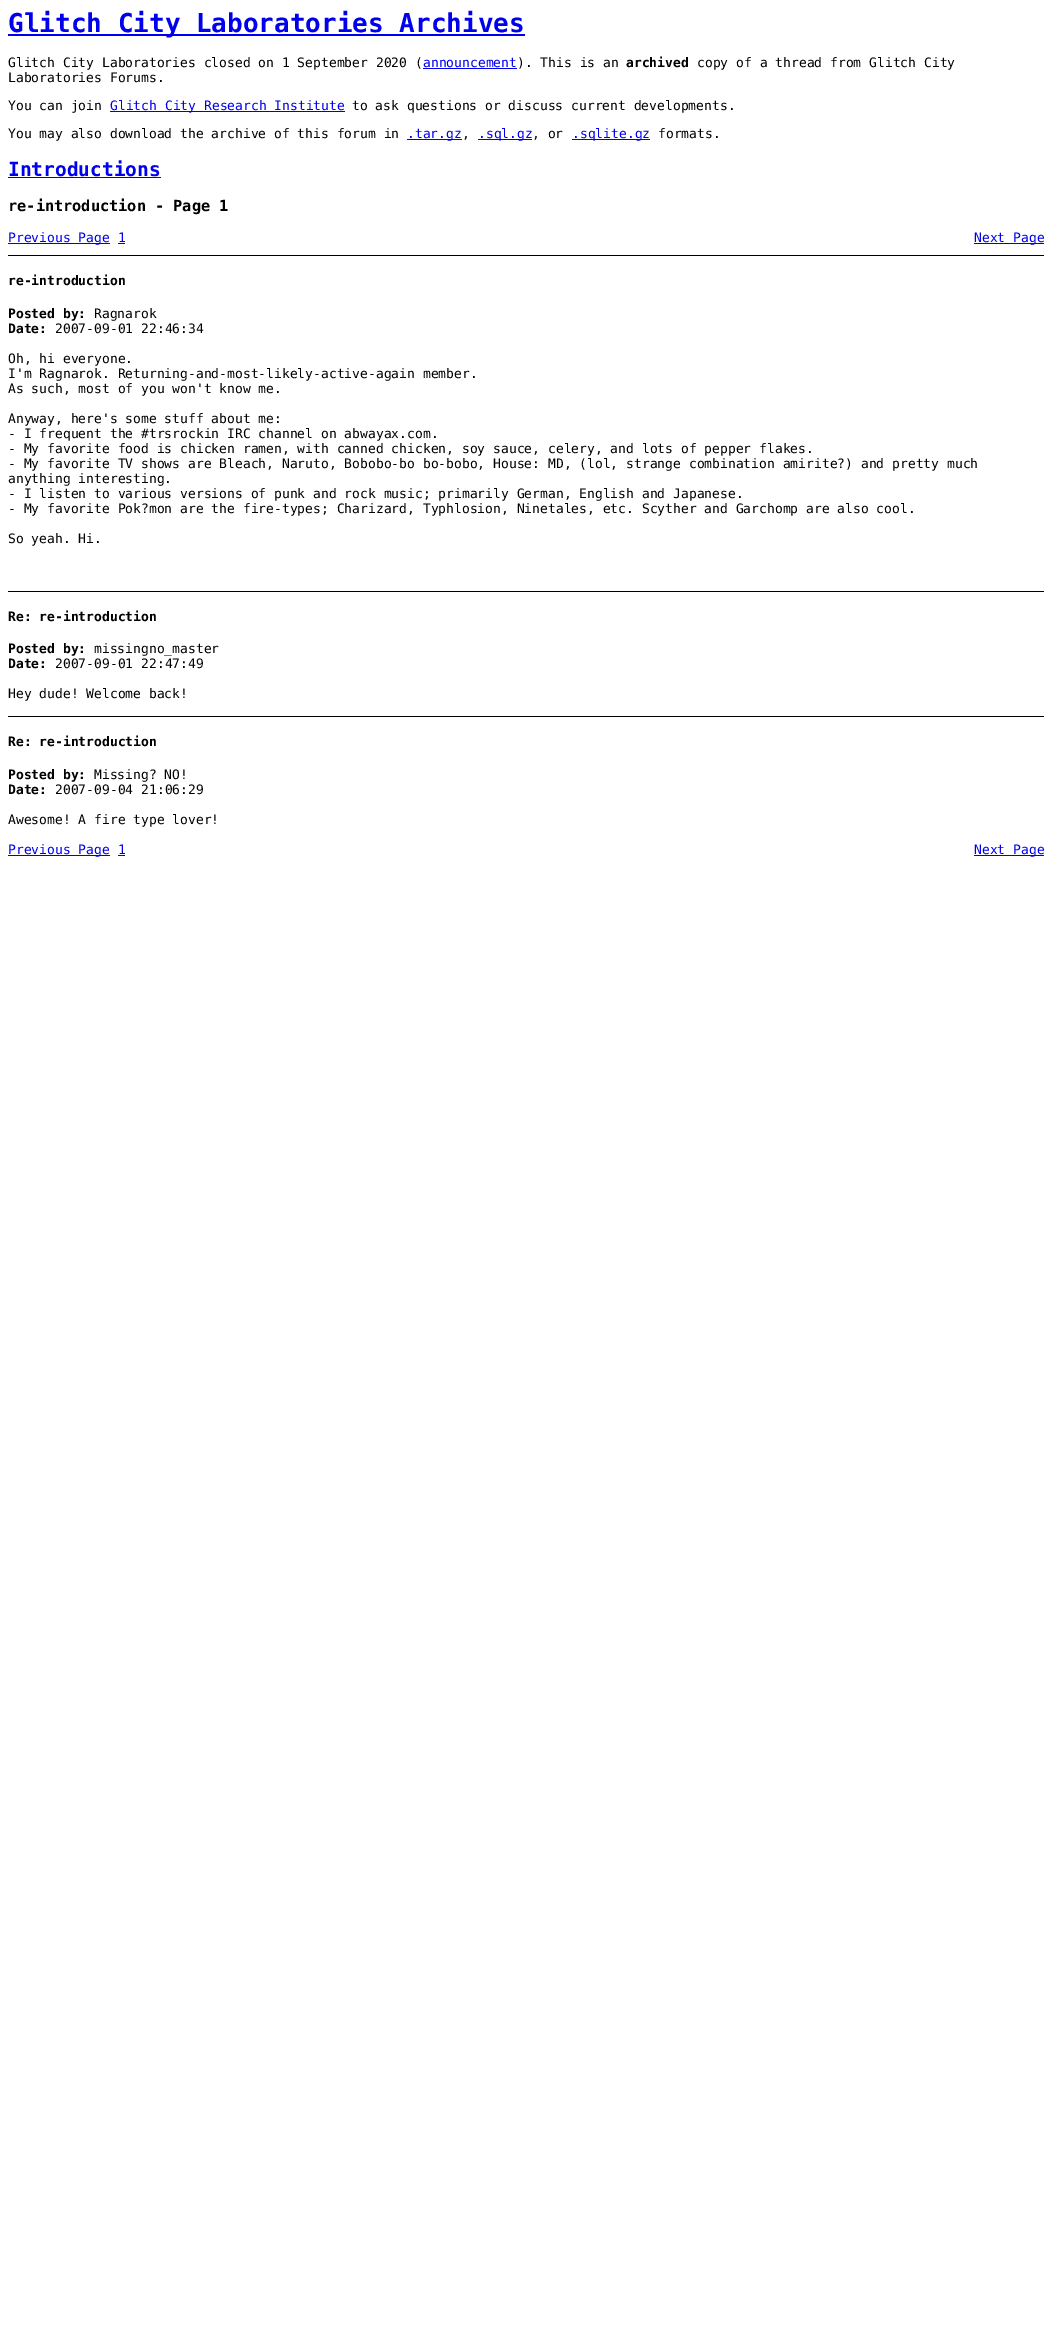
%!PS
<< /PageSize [1052 2333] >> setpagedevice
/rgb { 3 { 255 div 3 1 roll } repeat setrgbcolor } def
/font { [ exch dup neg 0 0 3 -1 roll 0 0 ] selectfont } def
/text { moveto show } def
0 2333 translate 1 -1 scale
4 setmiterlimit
255 255 255 rgb
0 0 1052 2333 rectfill
0 0 238 rgb
8 34 517 2 rectfill
423 68 94 1 rectfill
110 111 235 1 rectfill
407 139 55 1 rectfill
478 139 54 1 rectfill
572 139 78 1 rectfill
8 177 153 1 rectfill
8 243 102 1 rectfill
974 243 70 1 rectfill
118 243 7 1 rectfill
0 0 0 rgb
8 255 1036 1 rectfill
8 591 1036 1 rectfill
8 716 1036 1 rectfill
0 0 238 rgb
8 855 102 1 rectfill
974 855 70 1 rectfill
118 855 7 1 rectfill
/DejaVuSansMono-Bold 26 font
(Glitch City Laboratories Archives) 8 32 text
/DejaVuSansMono-Regular 13 font
0 0 0 rgb
(Glitch City Laboratories closed on 1 September 2020 \() 8 67 text
0 0 238 rgb
(announcement) 423 67 text
0 0 0 rgb
(\). This is an) 517 67 text
/DejaVuSansMono-Bold 13 font
(archived) 626 67 text
/DejaVuSansMono-Regular 13 font
(copy of a thread from Glitch City) 697 67 text
(Laboratories Forums.) 8 82 text
(You can join) 8 110 text
0 0 238 rgb
(Glitch City Research Institute) 110 110 text
0 0 0 rgb
(to ask questions or discuss current developments.) 352 110 text
(You may also download the archive of this forum in) 8 138 text
0 0 238 rgb
(.tar.gz) 407 138 text
0 0 0 rgb
(,) 462 138 text
0 0 238 rgb
(.sql.gz) 478 138 text
0 0 0 rgb
(, or) 532 138 text
0 0 238 rgb
(.sqlite.gz) 572 138 text
0 0 0 rgb
(formats.) 658 138 text
/DejaVuSansMono-Bold 19.5 font
0 0 238 rgb
(Introductions) 8 176 text
/DejaVuSansMono-Bold 15.25 font
0 0 0 rgb
(re-introduction - Page 1) 8 211 text
/DejaVuSansMono-Regular 13 font
0 0 238 rgb
(Previous Page 1) 8 242 text
(Next Page) 974 242 text
/DejaVuSansMono-Bold 13 font
0 0 0 rgb
(re-introduction) 8 285 text
(Posted by:) 8 318 text
/DejaVuSansMono-Regular 13 font
(Ragnarok) 94 318 text
/DejaVuSansMono-Bold 13 font
(Date:) 8 333 text
/DejaVuSansMono-Regular 13 font
(2007-09-01 22:46:34) 55 333 text
(Oh, hi everyone.) 8 363 text
(I'm Ragnarok. Returning-and-most-likely-active-again member.) 8 378 text
(As such, most of you won't know me.) 8 393 text
(Anyway, here's some stuff about me:) 8 423 text
(- I frequent the #trsrockin IRC channel on abwayax.com.) 8 438 text
(- My favorite food is chicken ramen, with canned chicken, soy sauce, celery, and lots of pepper flakes.) 8 453 text
(- My favorite TV shows are Bleach, Naruto, Bobobo-bo bo-bobo, House: MD, \(lol, strange combination amirite?\) and pretty much) 8 468 text
(anything interesting.) 8 483 text
(- I listen to various versions of punk and rock music; primarily German, English and Japanese.) 8 498 text
(- My favorite Pok?mon are the fire-types; Charizard, Typhlosion, Ninetales, etc. Scyther and Garchomp are also cool.) 8 513 text
(So yeah. Hi.) 8 543 text
/DejaVuSansMono-Bold 13 font
(Re: re-introduction) 8 621 text
(Posted by:) 8 653 text
/DejaVuSansMono-Regular 13 font
(missingno_master) 94 653 text
/DejaVuSansMono-Bold 13 font
(Date:) 8 668 text
/DejaVuSansMono-Regular 13 font
(2007-09-01 22:47:49) 55 668 text
(Hey dude! Welcome back!) 8 698 text
/DejaVuSansMono-Bold 13 font
(Re: re-introduction) 8 746 text
(Posted by:) 8 779 text
/DejaVuSansMono-Regular 13 font
(Missing? NO!) 94 779 text
/DejaVuSansMono-Bold 13 font
(Date:) 8 794 text
/DejaVuSansMono-Regular 13 font
(2007-09-04 21:06:29) 55 794 text
(Awesome! A fire type lover!) 8 824 text
0 0 238 rgb
(Previous Page 1) 8 854 text
(Next Page) 974 854 text
showpage
